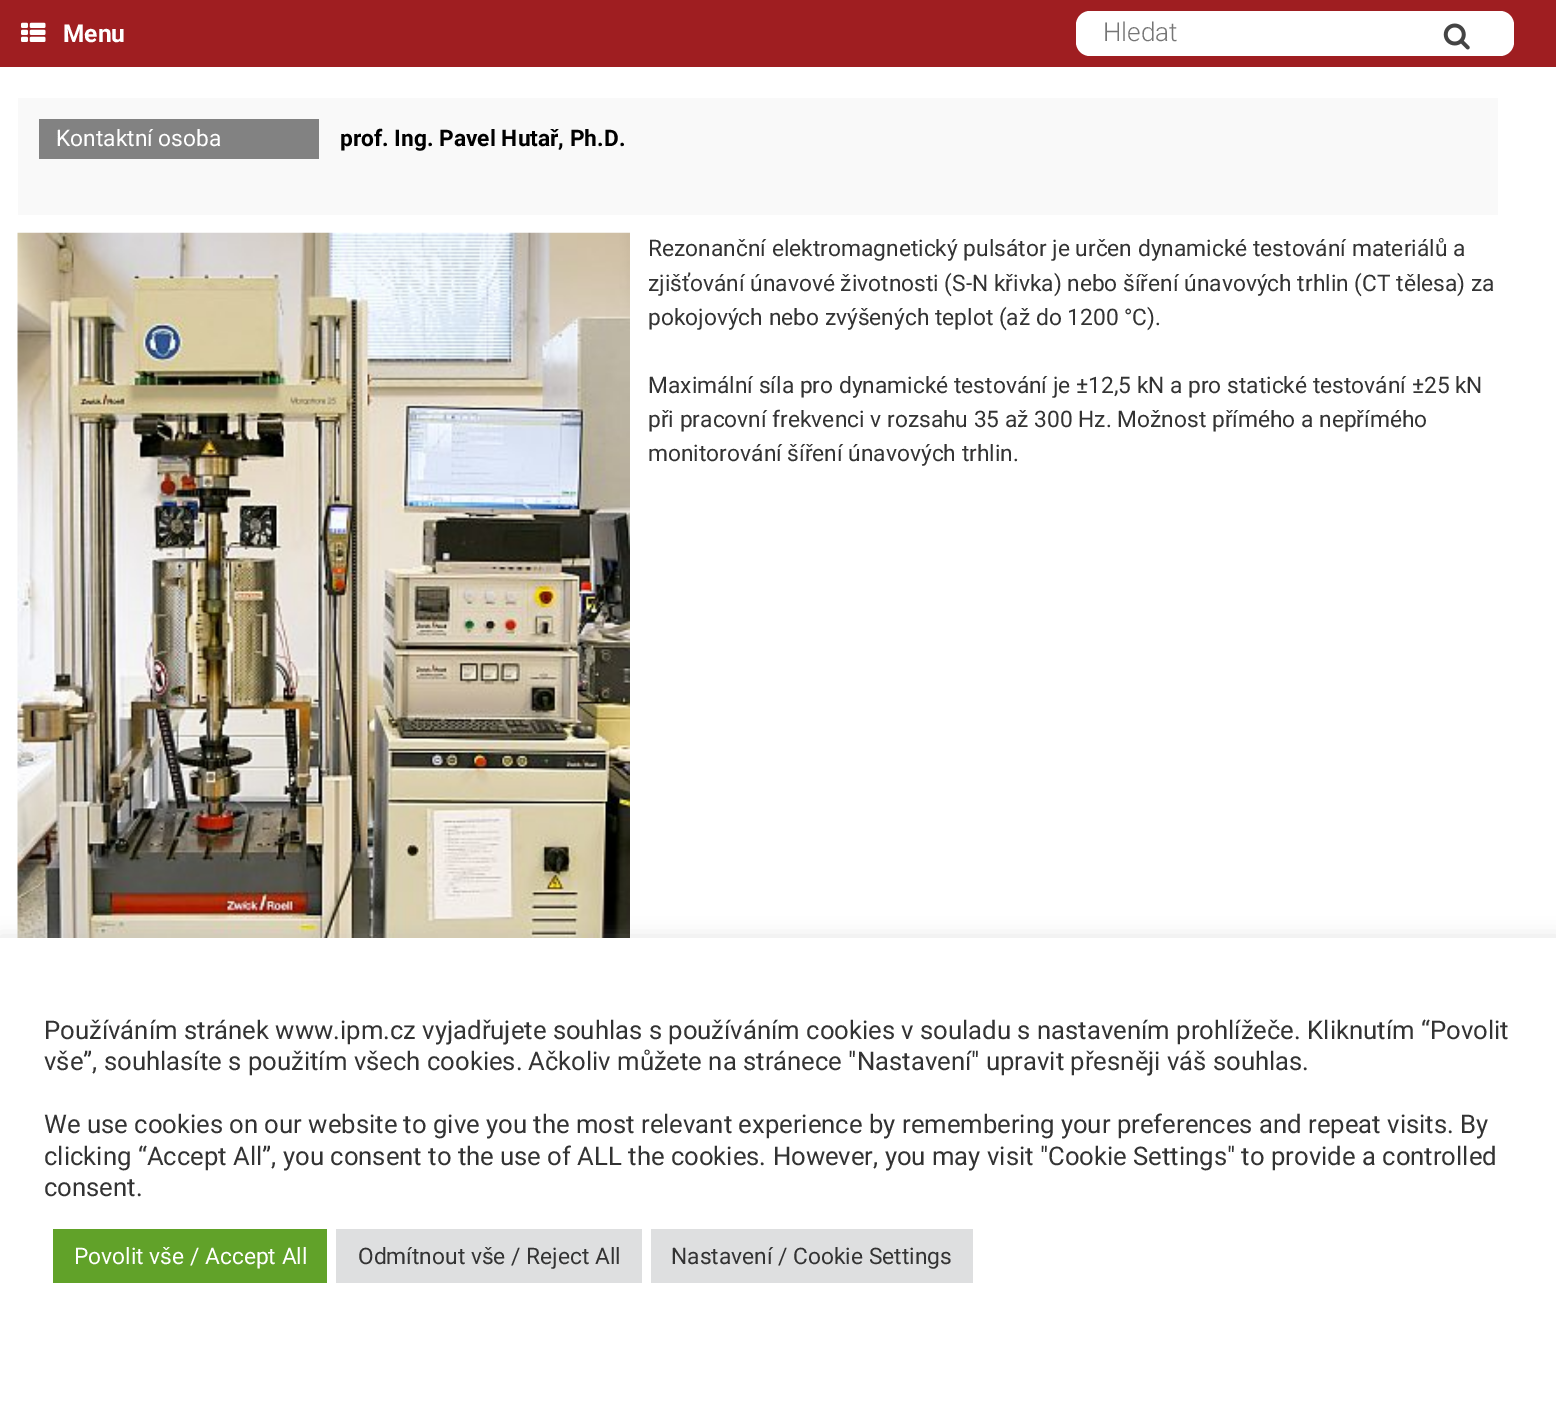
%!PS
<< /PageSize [1556 1405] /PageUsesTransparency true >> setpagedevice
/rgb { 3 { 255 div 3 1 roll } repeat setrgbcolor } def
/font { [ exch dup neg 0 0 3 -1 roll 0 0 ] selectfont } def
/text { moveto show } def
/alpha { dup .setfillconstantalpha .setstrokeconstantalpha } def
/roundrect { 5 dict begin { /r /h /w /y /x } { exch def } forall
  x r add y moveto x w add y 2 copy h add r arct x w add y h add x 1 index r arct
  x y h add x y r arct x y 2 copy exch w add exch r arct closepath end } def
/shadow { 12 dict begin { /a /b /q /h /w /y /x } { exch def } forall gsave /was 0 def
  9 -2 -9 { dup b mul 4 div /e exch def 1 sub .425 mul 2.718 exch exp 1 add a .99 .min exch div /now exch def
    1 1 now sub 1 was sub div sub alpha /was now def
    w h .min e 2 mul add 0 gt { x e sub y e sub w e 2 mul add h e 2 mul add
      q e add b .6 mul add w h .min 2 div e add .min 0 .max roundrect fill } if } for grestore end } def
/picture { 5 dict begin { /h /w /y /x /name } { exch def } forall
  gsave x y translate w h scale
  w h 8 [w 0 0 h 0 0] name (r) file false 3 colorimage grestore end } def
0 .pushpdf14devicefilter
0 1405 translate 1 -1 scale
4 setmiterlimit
255 255 255 rgb
0 0 1556 1405 rectfill
159 30 33 rgb
0 0 1556 67 rectfill
(img_01.rgb) 21 22 25 20 picture
255 255 255 rgb
1076 11 438 45 14 roundrect fill
(img_02.rgb) 1443 23 27 27 picture
249 249 249 rgb
18 98 1480 117 rectfill
130 130 130 rgb
39 119 280 40 rectfill
(img_03.rgb) 17 232 613 706 picture
172 171 171 rgb
0 936 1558 468 0 9 0.3 shadow
255 255 255 rgb
0 938 1556 467 rectfill
97 162 41 rgb
53 1229 274 54 rectfill
222 223 224 rgb
336 1229 306 54 rectfill
651 1229 322 54 rectfill
/Roboto-Bold 24.5 font
255 255 255 rgb
(Menu) 63 42 text
/Roboto-Light 26 font
117 117 117 rgb
(Hledat) 1103 41 text
/Roboto-Regular 22.75 font
255 255 255 rgb
(Kontaktní osoba) 56 146 text
/Roboto-Bold 22.75 font
0 0 0 rgb
(prof. Ing. Pavel Hutař, Ph.D.) 340 146 text
/Roboto-Regular 22.75 font
51 51 51 rgb
(Rezonanční elektromagnetický pulsátor je určen dynamické testování materiálů a) 648 256 text
(zjišťování únavové životnosti \(S-N křivka\) nebo šíření únavových trhlin \(CT tělesa\) za) 648 291 text
(pokojových nebo zvýšených teplot \(až do 1200 °C\).) 648 325 text
(Maximální síla pro dynamické testování je ±12,5 kN a pro statické testování ±25 kN) 648 393 text
(při pracovní frekvenci v rozsahu 35 až 300 Hz. Možnost přímého a nepřímého) 648 427 text
(monitorování šíření únavových trhlin.) 648 461 text
/Roboto-Regular 25.67 font
(Používáním stránek www.ipm.cz vyjadřujete souhlas s používáním cookies v souladu s nastavením prohlížeče. Kliknutím “Povolit) 44 1039 text
(vše”, souhlasíte s použitím všech cookies.) 44 1070 text
(Ačkoliv můžete na stránece "Nastavení" upravit přesněji váš souhlas.) 528 1070 text
(We use cookies on our website to give you the most relevant experience by remembering your preferences and repeat visits. By) 44 1133 text
(clicking “Accept All”, you consent to the use of ALL the cookies. However, you may visit "Cookie Settings" to provide a controlled) 44 1165 text
(consent.) 44 1196 text
/Roboto-Regular 22.75 font
255 255 255 rgb
(Povolit vše / Accept All) 74 1264 text
51 51 51 rgb
(Odmítnout vše / Reject All) 358 1264 text
(Nastavení / Cookie Settings) 671 1264 text
.poppdf14devicefilter showpage
